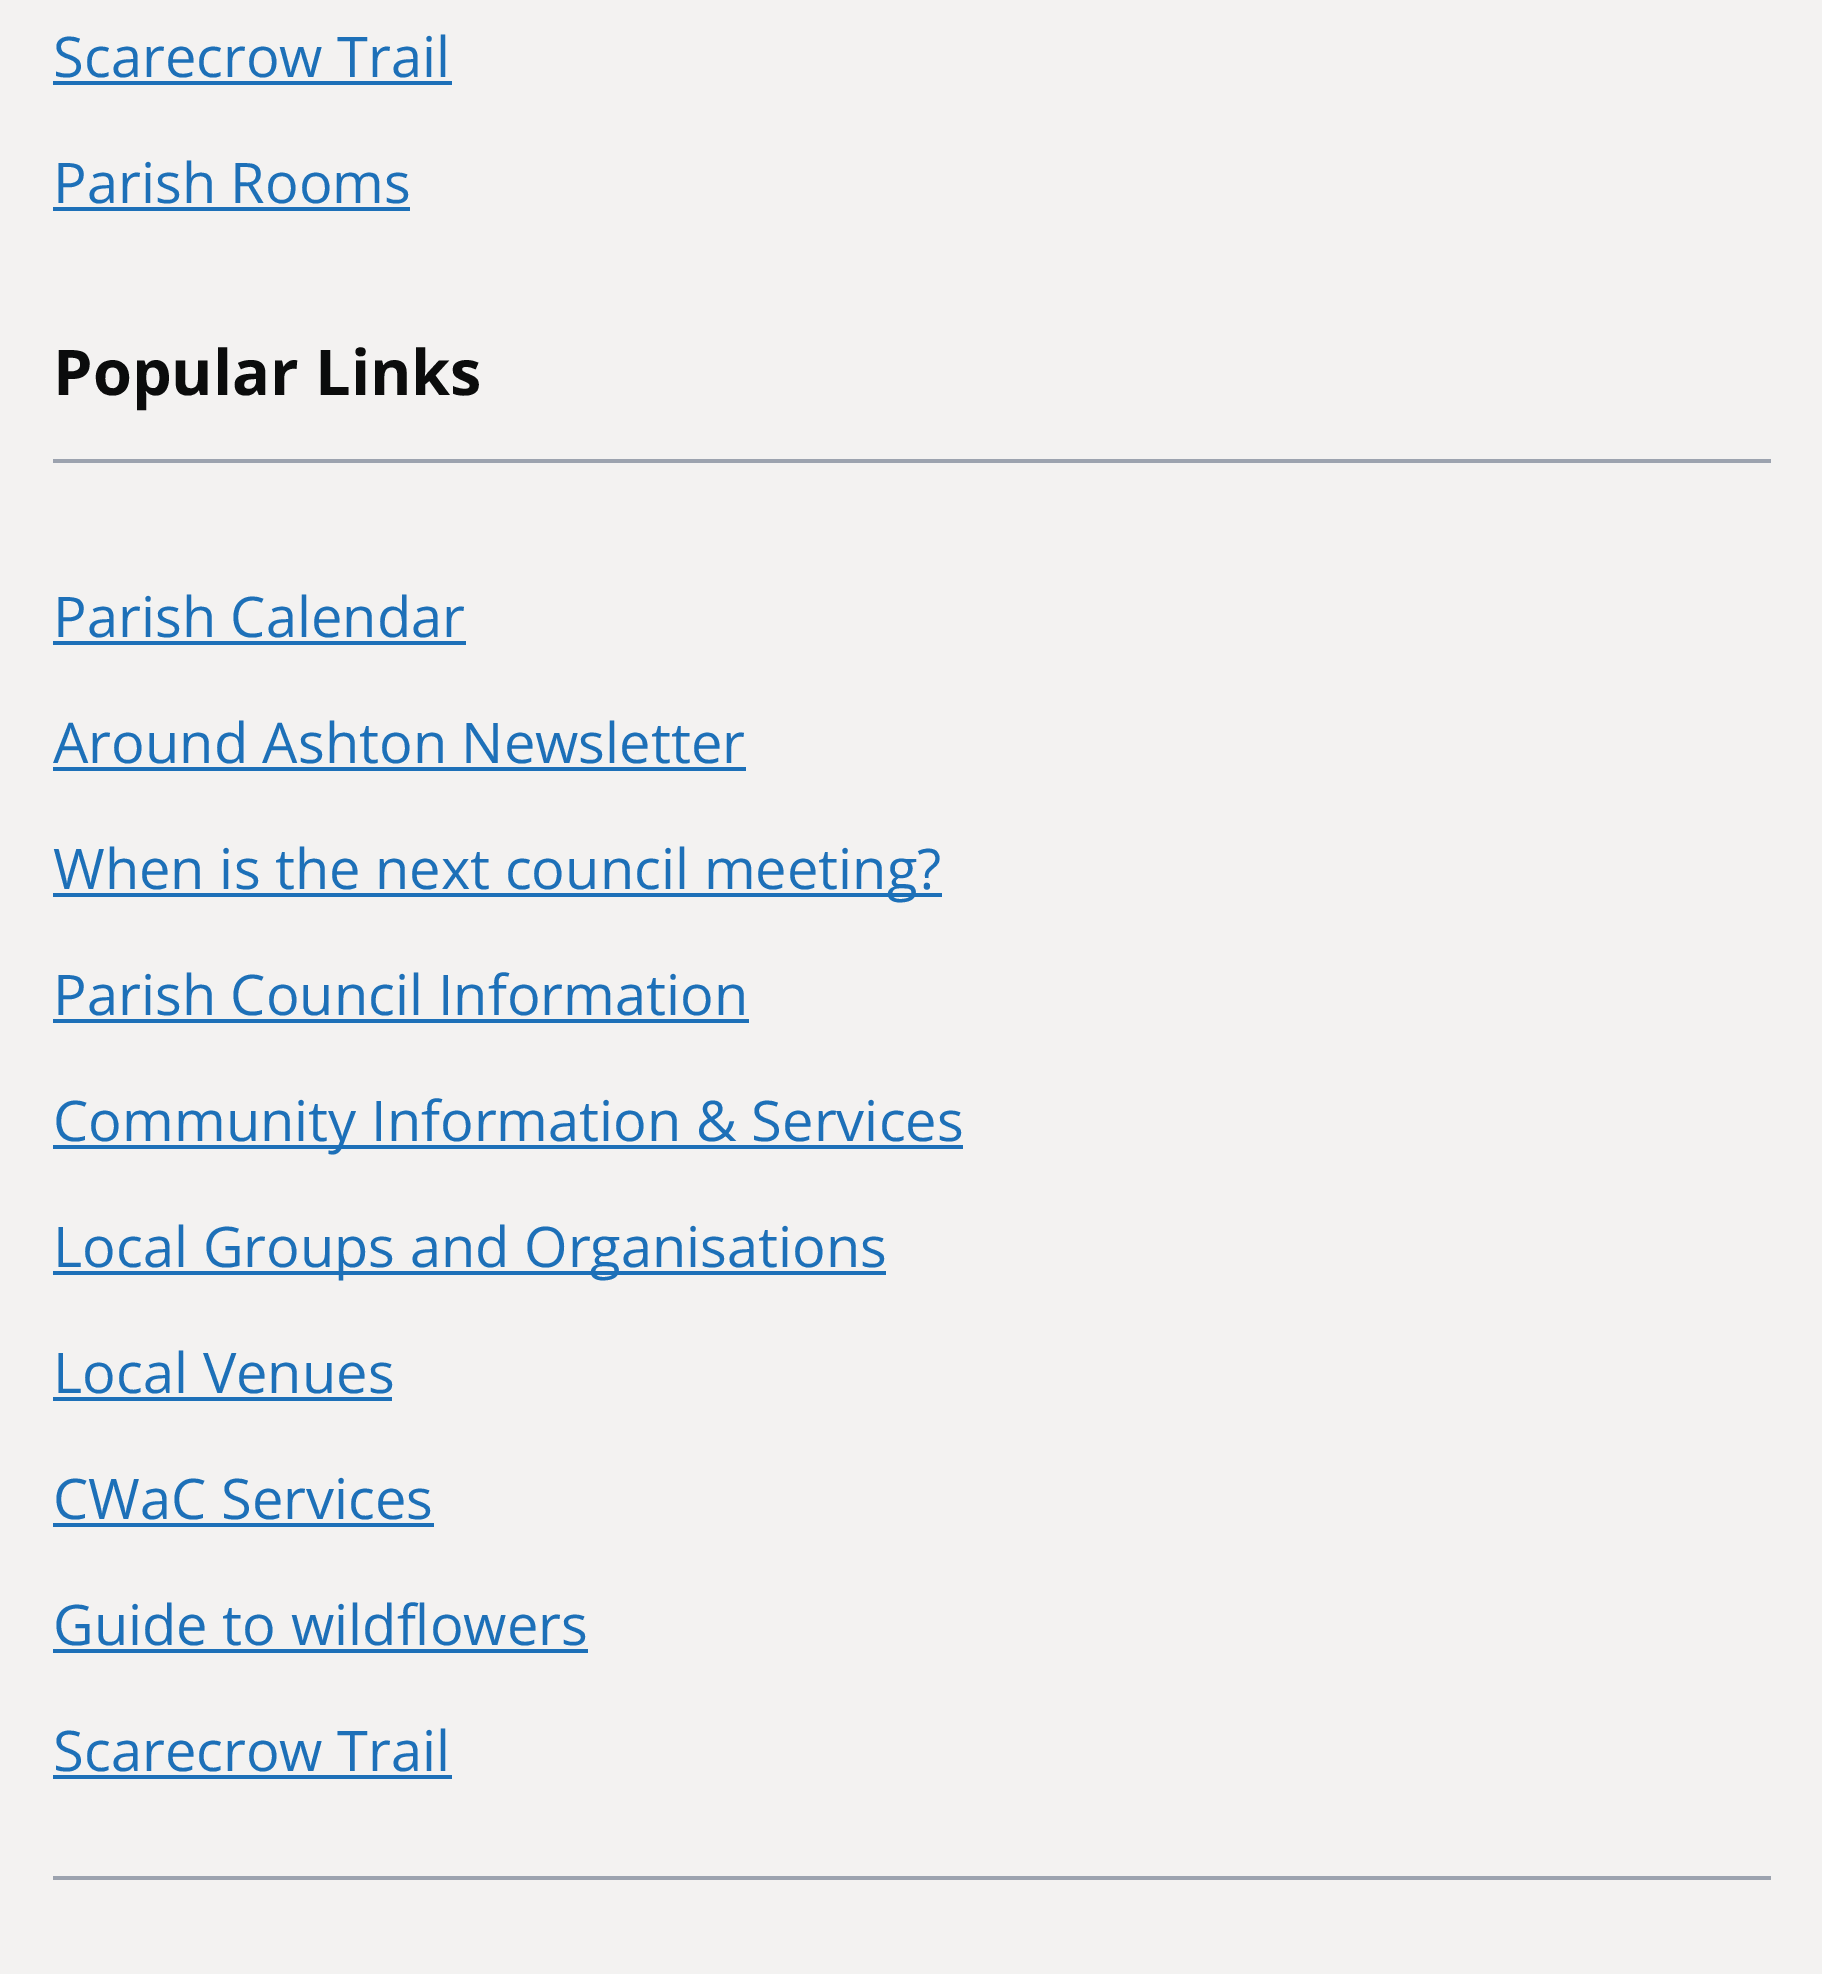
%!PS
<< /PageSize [1822 1974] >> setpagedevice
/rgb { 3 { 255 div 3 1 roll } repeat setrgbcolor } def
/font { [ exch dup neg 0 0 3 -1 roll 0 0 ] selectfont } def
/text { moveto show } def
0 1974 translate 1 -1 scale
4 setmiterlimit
243 242 241 rgb
0 0 1822 1974 rectfill
156 163 175 rgb
53 1876 1718 4 rectfill
29 112 184 rgb
53 81 399 4 rectfill
53 207 357 4 rectfill
156 163 175 rgb
53 459 1718 4 rectfill
29 112 184 rgb
53 641 413 4 rectfill
53 767 693 4 rectfill
53 893 889 4 rectfill
53 1019 696 4 rectfill
53 1145 910 4 rectfill
53 1271 833 4 rectfill
53 1397 339 4 rectfill
53 1523 381 4 rectfill
53 1649 535 4 rectfill
53 1775 399 4 rectfill
/OpenSans-Regular 56 font
(Scarecrow Trail) 53 77 text
(Parish Rooms) 53 203 text
/OpenSans-Bold 63 font
11 12 12 rgb
(Popular Links) 53 395 text
/OpenSans-Regular 56 font
29 112 184 rgb
(Parish Calendar) 53 637 text
(Around Ashton Newsletter) 53 763 text
(When is the next council meeting?) 53 889 text
(Parish Council Information) 53 1015 text
(Community Information & Services) 53 1141 text
(Local Groups and Organisations) 53 1267 text
(Local Venues) 53 1393 text
(CWaC Services) 53 1519 text
(Guide to wildflowers) 53 1645 text
(Scarecrow Trail) 53 1771 text
showpage
